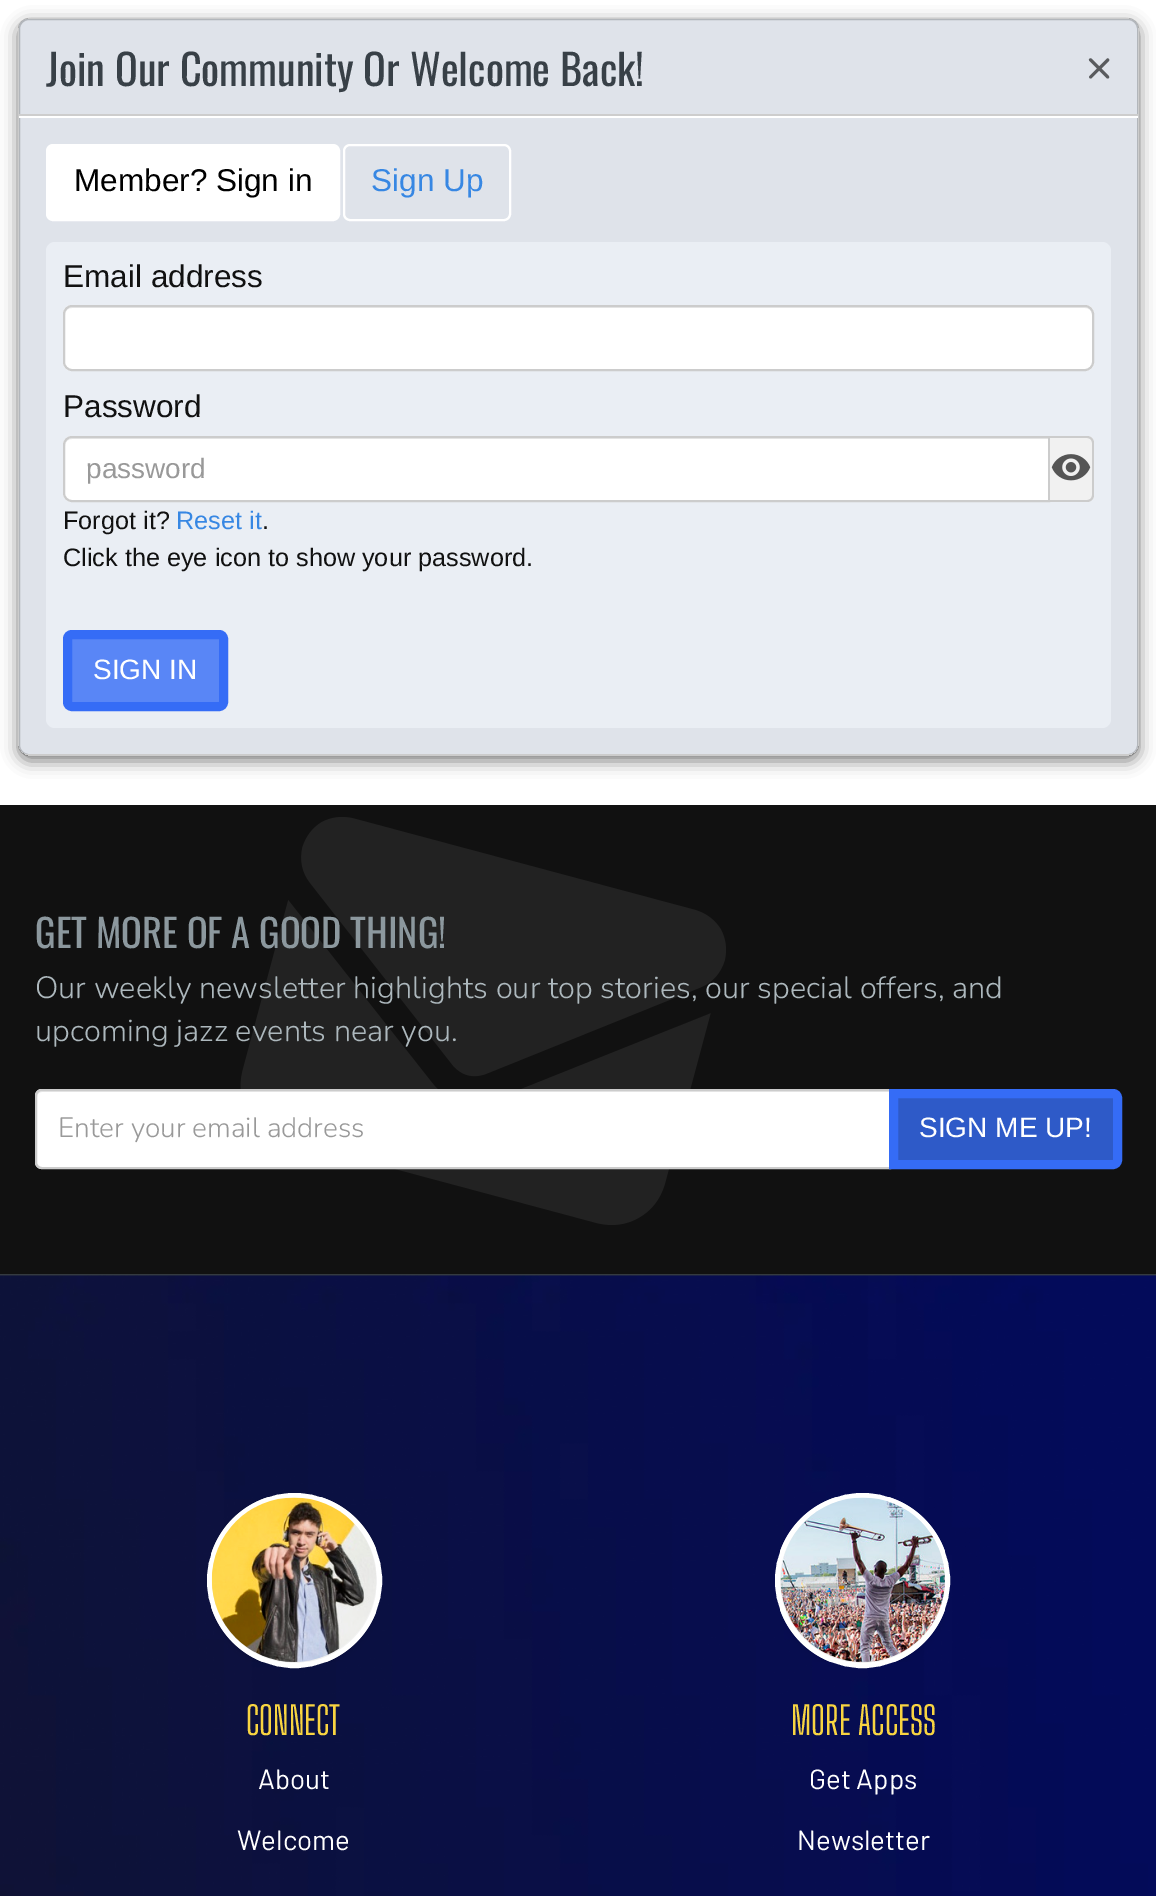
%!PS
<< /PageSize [1156 1896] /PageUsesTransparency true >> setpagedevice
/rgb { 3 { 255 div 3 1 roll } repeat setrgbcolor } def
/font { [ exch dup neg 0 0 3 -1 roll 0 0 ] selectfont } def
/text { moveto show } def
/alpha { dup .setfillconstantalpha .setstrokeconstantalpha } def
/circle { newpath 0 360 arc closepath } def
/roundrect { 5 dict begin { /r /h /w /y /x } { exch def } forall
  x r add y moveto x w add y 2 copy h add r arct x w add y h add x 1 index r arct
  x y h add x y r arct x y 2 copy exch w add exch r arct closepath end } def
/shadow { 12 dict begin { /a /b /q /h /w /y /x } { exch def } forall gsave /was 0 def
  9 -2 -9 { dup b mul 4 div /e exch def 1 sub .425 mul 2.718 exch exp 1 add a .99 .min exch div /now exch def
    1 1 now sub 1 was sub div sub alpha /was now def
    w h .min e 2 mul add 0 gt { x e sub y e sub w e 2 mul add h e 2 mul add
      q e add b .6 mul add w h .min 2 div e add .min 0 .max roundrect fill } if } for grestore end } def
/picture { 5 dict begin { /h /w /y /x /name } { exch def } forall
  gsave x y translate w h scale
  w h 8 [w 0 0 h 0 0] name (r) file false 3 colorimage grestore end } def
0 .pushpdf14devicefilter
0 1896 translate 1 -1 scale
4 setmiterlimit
255 255 255 rgb
0 0 1156 1896 rectfill
gsave
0 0 moveto 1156 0 rlineto 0 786 rlineto -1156 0 rlineto closepath 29 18 moveto 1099 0 rlineto 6 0 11 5 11 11 rcurveto 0 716 rlineto 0 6 -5 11 -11 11 rcurveto -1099 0 rlineto -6 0 -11 -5 -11 -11 rcurveto 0 -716 rlineto 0 -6 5 -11 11 -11 rcurveto closepath eoclip newpath
0 0 0 rgb
18 23 1121 738 11 8 0.5 shadow
grestore
223 227 234 rgb
19 19 1119 735 9 roundrect fill
0.2 alpha
0 0 0 rgb
2 setlinewidth
19 19 1119 736 10 roundrect stroke
1 alpha
205 205 205 rgb
19 114 1119 2 rectfill
255 255 255 rgb
19 116 1119 2 rectfill
47 145 292 75 6 roundrect gsave fill grestore
stroke
344 145 166 75 6 roundrect stroke
234 238 244 rgb
46 242 1065 486 9 roundrect fill
255 255 255 rgb
63 305 1031 66 9 roundrect fill
236 236 236 rgb
72 308 moveto 1013 0 rlineto 4 0 7 3 7 7 rcurveto 0 -2 rlineto 0 -4 -3 -7 -7 -7 rcurveto -1013 0 rlineto -4 0 -7 3 -7 7 rcurveto 0 2 rlineto 0 -4 3 -7 7 -7 rcurveto closepath fill
204 204 204 rgb
64 306 1029 64 8 roundrect stroke
255 255 255 rgb
72 436 moveto 978 0 rlineto 0 66 rlineto -978 0 rlineto -5 0 -9 -4 -9 -9 rcurveto 0 -48 rlineto 0 -5 4 -9 9 -9 rcurveto closepath fill
236 236 236 rgb
72 439 moveto 976 0 rlineto 0 -1 rlineto -976 0 rlineto -4 0 -7 3 -7 7 rcurveto 0 1 rlineto 0 -4 3 -7 7 -7 rcurveto closepath fill
204 204 204 rgb
72 437 moveto 977 0 rlineto 0 64 rlineto -977 0 rlineto -4.5 0 -8 -3.5 -8 -8 rcurveto 0 -48 rlineto 0 -4.5 3.5 -8 8 -8 rcurveto closepath stroke
241 241 241 rgb
1050 436 moveto 37 0 rlineto 4 0 7 3 7 7 rcurveto 0 52 rlineto 0 4 -3 7 -7 7 rcurveto -37 0 rlineto closepath fill
204 204 204 rgb
1050 436 moveto 37 0 rlineto 4 0 7 3 7 7 rcurveto 0 52 rlineto 0 4 -3 7 -7 7 rcurveto -37 0 rlineto closepath 1050 438 moveto 37 0 rlineto 3 0 5 2 5 5 rcurveto 0 52 rlineto 0 3 -2 5 -5 5 rcurveto -37 0 rlineto closepath eofill
(img_01.rgb) 1051 454 40 27 picture
89 134 246 rgb
67.5 634.5 156 72 4.5 roundrect gsave fill grestore
53 108 246 rgb
9 setlinewidth
stroke
17 17 17 rgb
0 805 1156 469 rectfill
52 58 64 rgb
0 1274 1156 2 rectfill
(img_02.rgb) 240 817 486 408 picture
255 255 255 rgb
42 1089 moveto 849 0 rlineto 0 80 rlineto -849 0 rlineto -4 0 -7 -3 -7 -7 rcurveto 0 -66 rlineto 0 -4 3 -7 7 -7 rcurveto closepath fill
236 236 236 rgb
42 1092 moveto 847 0 rlineto 0 -2 rlineto -847 0 rlineto -4 0 -5 4 -5 7 rcurveto 0 -3 2 -5 5 -5 rcurveto closepath fill
204 204 204 rgb
2 setlinewidth
42 1090 moveto 848 0 rlineto 0 78 rlineto -848 0 rlineto -3.5 0 -6 -2.5 -6 -6 rcurveto 0 -66 rlineto 0 -3.5 2.5 -6 6 -6 rcurveto closepath stroke
0.8 alpha
53 108 246 rgb
893.5 1093.5 moveto 219.5 0 rlineto 2.5 0 4.5 2 4.5 4.5 rcurveto 0 62 rlineto 0 2.5 -2 4.5 -4.5 4.5 rcurveto -219.5 0 rlineto closepath fill
1 alpha
9 setlinewidth
893.5 1093.5 moveto 219.5 0 rlineto 2.5 0 4.5 2 4.5 4.5 rcurveto 0 62 rlineto 0 2.5 -2 4.5 -4.5 4.5 rcurveto -219.5 0 rlineto closepath stroke
(img_03.rgb) 0 1275 1156 621 picture
241 241 241 rgb
294.5 1580.5 85 circle gsave fill grestore
255 255 255 rgb
5 setlinewidth
stroke
(img_04.rgb) 211 1497 165 165 picture
241 241 241 rgb
862.5 1580.5 85 circle gsave fill grestore
255 255 255 rgb
stroke
(img_05.rgb) 780 1497 165 165 picture
/Oswald-Regular 42.4 font
56 64 71 rgb
(Join Our Community Or Welcome Back!) 46 86 text
/Nunito-Bold 42 font
89 91 94 rgb
(×) 1086 81 text
/LiberationSans-Regular 31.5 font
0 0 0 rgb
(Member? Sign in) 74 191 text
55 135 227 rgb
(Sign Up) 371 191 text
17 17 17 rgb
(Email address) 63 287 text
(Password) 63 417 text
/LiberationSans-Regular 28 font
153 153 153 rgb
(password) 86 478 text
/LiberationSans-Regular 25.25 font
17 17 17 rgb
(Forgot it?) 63 529 text
55 135 227 rgb
(Reset it) 176 529 text
17 17 17 rgb
(.) 262 529 text
(Click the eye icon to show your password.) 63 566 text
/LiberationSans-Regular 28 font
255 255 255 rgb
(SIGN IN) 93 679 text
/Oswald-Regular 38.5 font
140 152 158 rgb
(GET MORE OF A GOOD THING!) 35 948 text
/Nunito-ExtraLight 30.8 font
173 184 189 rgb
(Our weekly newsletter highlights our top stories, our special offers, and) 35 998 text
(upcoming jazz events near you.) 35 1041 text
/Nunito-ExtraLight 28 font
153 153 153 rgb
(Enter your email address) 58 1137 text
/LiberationSans-Regular 28 font
255 255 255 rgb
(SIGN ME UP!) 919 1137 text
/BigShouldersDisplay-Thin 38.5 font
248 212 65 rgb
(CONNECT) 246 1735 text
/Barlow-Regular 27.75 font
255 255 255 rgb
(About) 258 1789 text
(Welcome) 237 1850 text
/BigShouldersDisplay-Thin 38.5 font
248 212 65 rgb
(MORE ACCESS) 791 1735 text
/Barlow-Regular 27.75 font
255 255 255 rgb
(Get Apps) 809 1789 text
(Newsletter) 797 1850 text
.poppdf14devicefilter showpage
